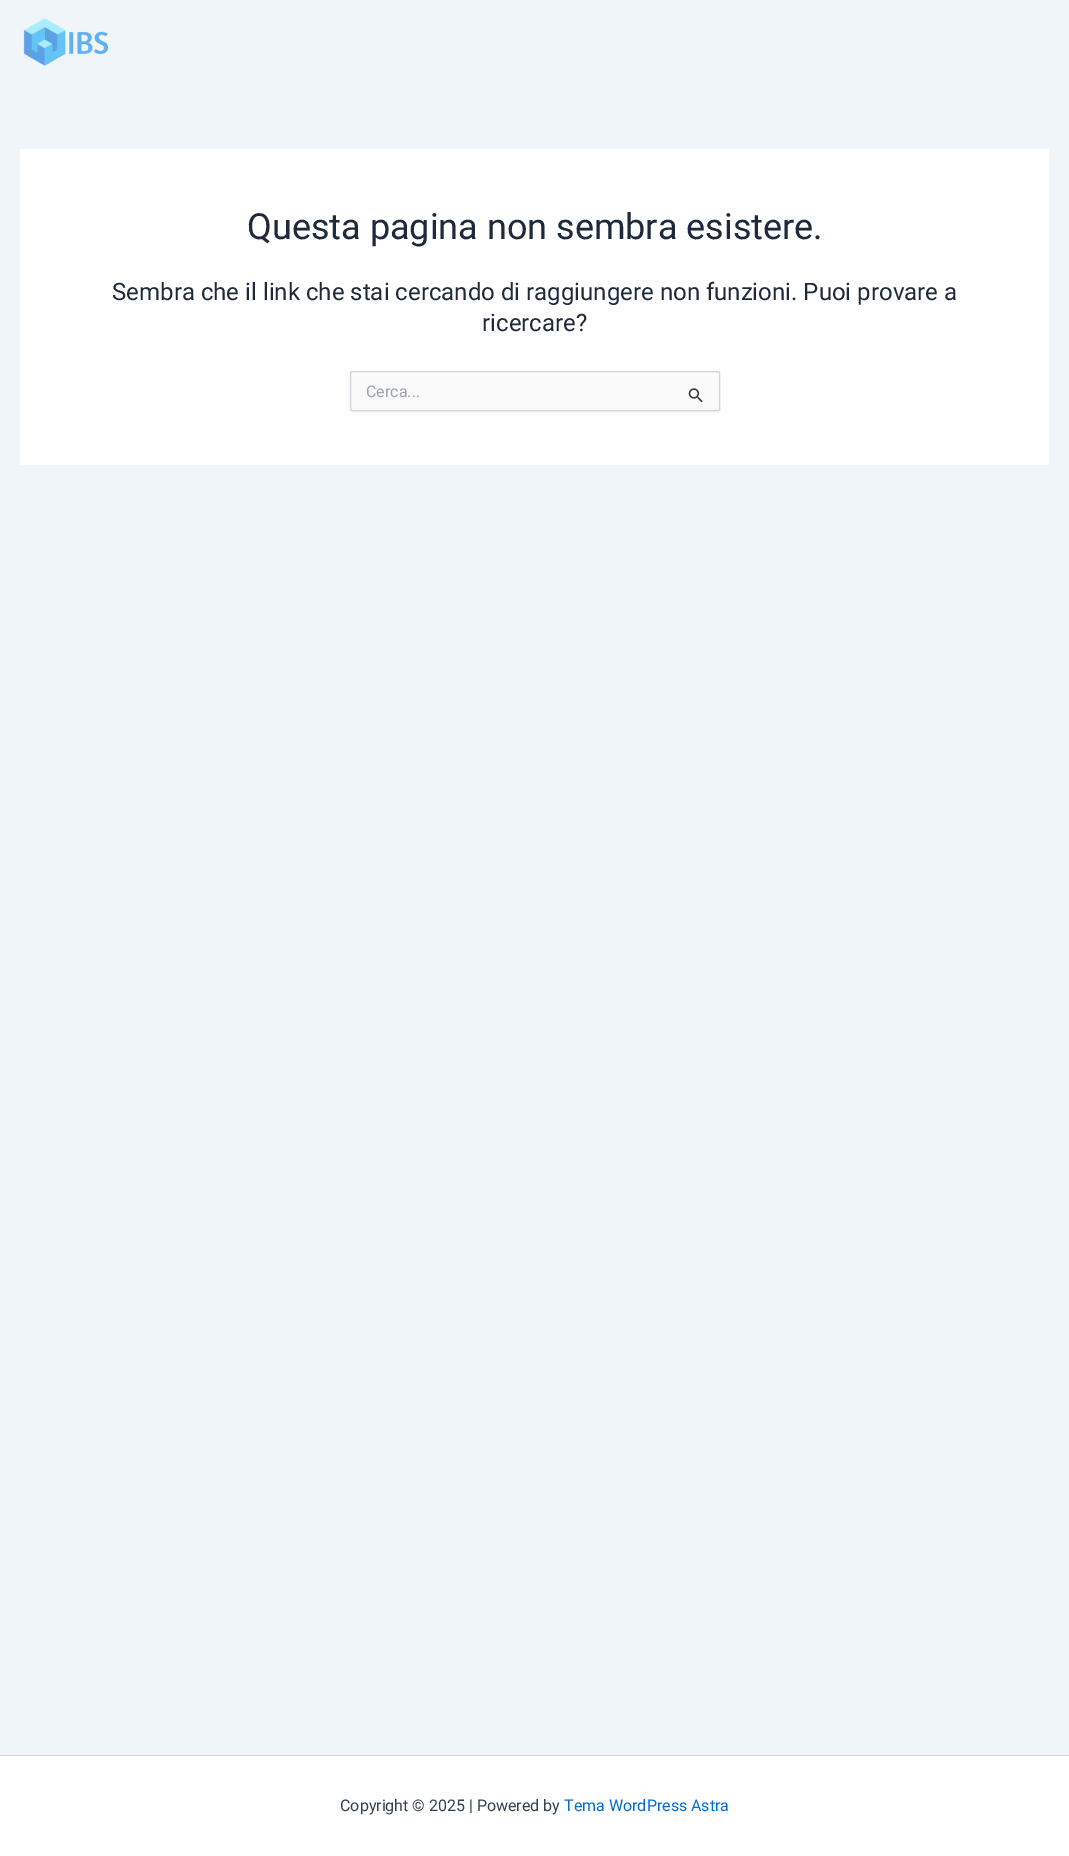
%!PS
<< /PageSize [1069 1856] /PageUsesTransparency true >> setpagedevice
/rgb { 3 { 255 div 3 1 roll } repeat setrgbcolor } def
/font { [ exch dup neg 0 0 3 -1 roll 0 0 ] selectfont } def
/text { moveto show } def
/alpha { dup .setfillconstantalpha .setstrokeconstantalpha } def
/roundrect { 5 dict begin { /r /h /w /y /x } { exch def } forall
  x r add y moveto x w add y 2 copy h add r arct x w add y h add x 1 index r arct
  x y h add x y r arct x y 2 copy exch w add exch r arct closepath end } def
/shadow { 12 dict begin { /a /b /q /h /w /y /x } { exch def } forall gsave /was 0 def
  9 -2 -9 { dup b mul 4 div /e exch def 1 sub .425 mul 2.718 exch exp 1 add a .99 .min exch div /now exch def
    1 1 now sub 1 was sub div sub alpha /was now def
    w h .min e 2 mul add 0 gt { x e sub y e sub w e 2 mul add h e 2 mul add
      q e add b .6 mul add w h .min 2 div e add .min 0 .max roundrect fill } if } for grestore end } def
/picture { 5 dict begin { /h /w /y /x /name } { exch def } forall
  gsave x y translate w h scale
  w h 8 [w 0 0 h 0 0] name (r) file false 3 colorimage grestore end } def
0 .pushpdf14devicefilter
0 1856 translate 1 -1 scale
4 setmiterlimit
240 245 250 rgb
0 0 1069 1856 rectfill
(img_01.rgb) 23 18 86 48 picture
255 255 255 rgb
20 149 1029 316 rectfill
0 0 0 rgb
350 372 370 40 2 1 0.05 shadow
250 250 250 rgb
350.5 371.5 369 39 1.5 roundrect gsave fill grestore
209 213 219 rgb
stroke
(img_02.rgb) 688 388 15 15 picture
255 255 255 rgb
0 1756 1069 100 rectfill
209 213 219 rgb
0 1755 1069 1 rectfill
/Roboto-Regular 36 font
30 41 59 rgb
(Questa pagina non sembra esistere.) 247 239 text
/Roboto-Regular 24 font
(Sembra che il link che stai cercando di raggiungere non funzioni. Puoi provare a) 112 300 text
(ricercare?) 482 331 text
/Roboto-Regular 16 font
156 163 175 rgb
(Cerca...) 366 397 text
51 65 85 rgb
(Copyright © 2025 | Powered by) 340 1811 text
4 107 210 rgb
(Tema WordPress Astra) 564 1811 text
.poppdf14devicefilter showpage
